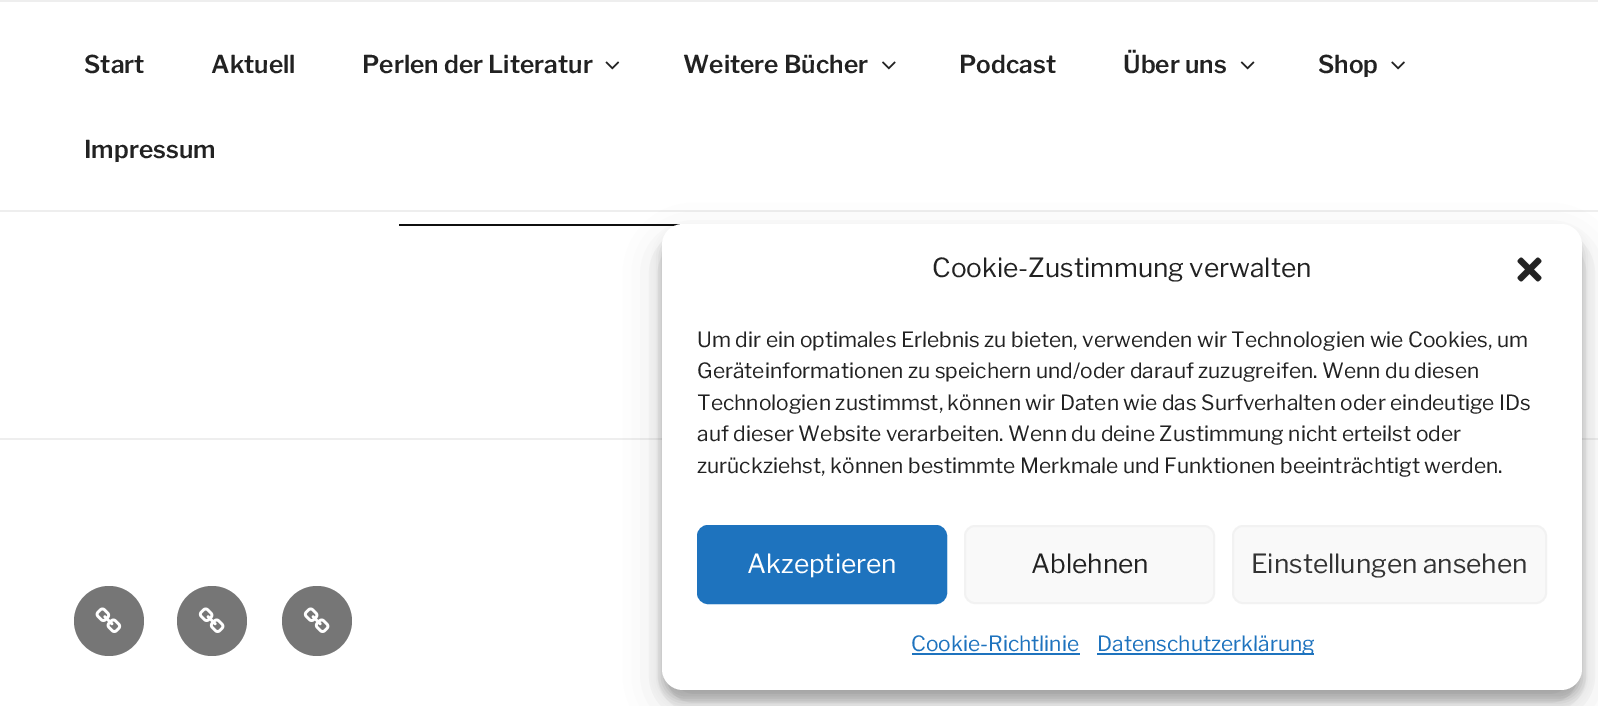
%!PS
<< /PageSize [1598 706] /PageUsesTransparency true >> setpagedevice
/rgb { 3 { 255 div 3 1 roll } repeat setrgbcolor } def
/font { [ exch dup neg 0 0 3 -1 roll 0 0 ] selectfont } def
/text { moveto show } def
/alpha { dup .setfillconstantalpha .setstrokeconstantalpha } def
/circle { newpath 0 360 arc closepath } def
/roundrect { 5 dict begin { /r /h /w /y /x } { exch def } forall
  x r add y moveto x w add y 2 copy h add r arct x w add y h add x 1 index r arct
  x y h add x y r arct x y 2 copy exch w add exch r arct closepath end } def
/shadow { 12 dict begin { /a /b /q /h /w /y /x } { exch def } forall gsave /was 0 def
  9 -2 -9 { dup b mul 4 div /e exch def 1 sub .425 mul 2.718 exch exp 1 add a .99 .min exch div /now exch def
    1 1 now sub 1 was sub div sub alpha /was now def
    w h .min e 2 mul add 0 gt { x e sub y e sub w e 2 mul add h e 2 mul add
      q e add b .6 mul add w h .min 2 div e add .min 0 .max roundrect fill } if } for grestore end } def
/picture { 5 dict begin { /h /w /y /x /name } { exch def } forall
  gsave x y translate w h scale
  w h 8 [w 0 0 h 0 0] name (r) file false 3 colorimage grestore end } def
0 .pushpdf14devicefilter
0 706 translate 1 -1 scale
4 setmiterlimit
255 255 255 rgb
0 0 1598 706 rectfill
238 238 238 rgb
0 0 1598 2 rectfill
0 210 1598 2 rectfill
(img_01.rgb) 605 61 15 9 picture
(img_02.rgb) 882 61 14 9 picture
(img_03.rgb) 1240 61 15 9 picture
(img_04.rgb) 1391 61 14 9 picture
15 15 15 rgb
399 224 282 2 rectfill
238 238 238 rgb
0 438 1598 2 rectfill
118 118 118 rgb
109 621 35 circle fill
(img_05.rgb) 95 607 27 26 picture
212 621 35 circle fill
(img_06.rgb) 198 607 27 26 picture
317 621 35 circle fill
(img_06.rgb) 303 607 27 26 picture
0 0 0 rgb
662 235 920 465 21 5 0.23 shadow
662 242 920 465 21 17.5 0.19 shadow
255 255 255 rgb
662 224 920 466 21 roundrect fill
(img_07.rgb) 1517 257 25 25 picture
30 115 190 rgb
698 526 248 77 10 roundrect gsave fill grestore
2 setlinewidth
stroke
249 249 249 rgb
965 526 249 77 10 roundrect gsave fill grestore
242 242 242 rgb
stroke
249 249 249 rgb
1233 526 313 77 10 roundrect gsave fill grestore
242 242 242 rgb
stroke
30 115 190 rgb
912 653 168 2 rectfill
1097 653 217 2 rectfill
/LibreFranklin-Thin 24.5 font
34 34 34 rgb
(Start) 84 73 text
(Aktuell) 211 73 text
(Perlen der Literatur) 362 73 text
(Weitere Bücher) 683 73 text
(Podcast) 959 73 text
(Über uns) 1123 73 text
(Shop) 1318 73 text
(Impressum) 84 158 text
/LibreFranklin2-Thin 26.25 font
(Cookie-Zustimmung verwalten) 932 277 text
/LibreFranklin2-Thin 21 font
(Um dir ein optimales Erlebnis zu bieten, verwenden wir Technologien wie Cookies, um) 697 347 text
(Geräteinformationen zu speichern und/oder darauf zuzugreifen. Wenn du diesen) 697 378 text
(Technologien zustimmst, können wir Daten wie das Surfverhalten oder eindeutige IDs) 697 410 text
(auf dieser Website verarbeiten. Wenn du deine Zustimmung nicht erteilst oder) 697 441 text
(zurückziehst, können bestimmte Merkmale und Funktionen beeinträchtigt werden.) 697 473 text
/LibreFranklin2-Thin 26.25 font
255 255 255 rgb
(Akzeptieren) 747 573 text
34 34 34 rgb
(Ablehnen) 1031 573 text
51 51 51 rgb
(Einstellungen ansehen) 1251 573 text
/LibreFranklin2-Thin 21 font
30 115 190 rgb
(Cookie-Richtlinie) 911 651 text
(Datenschutzerklärung) 1097 651 text
.poppdf14devicefilter showpage
